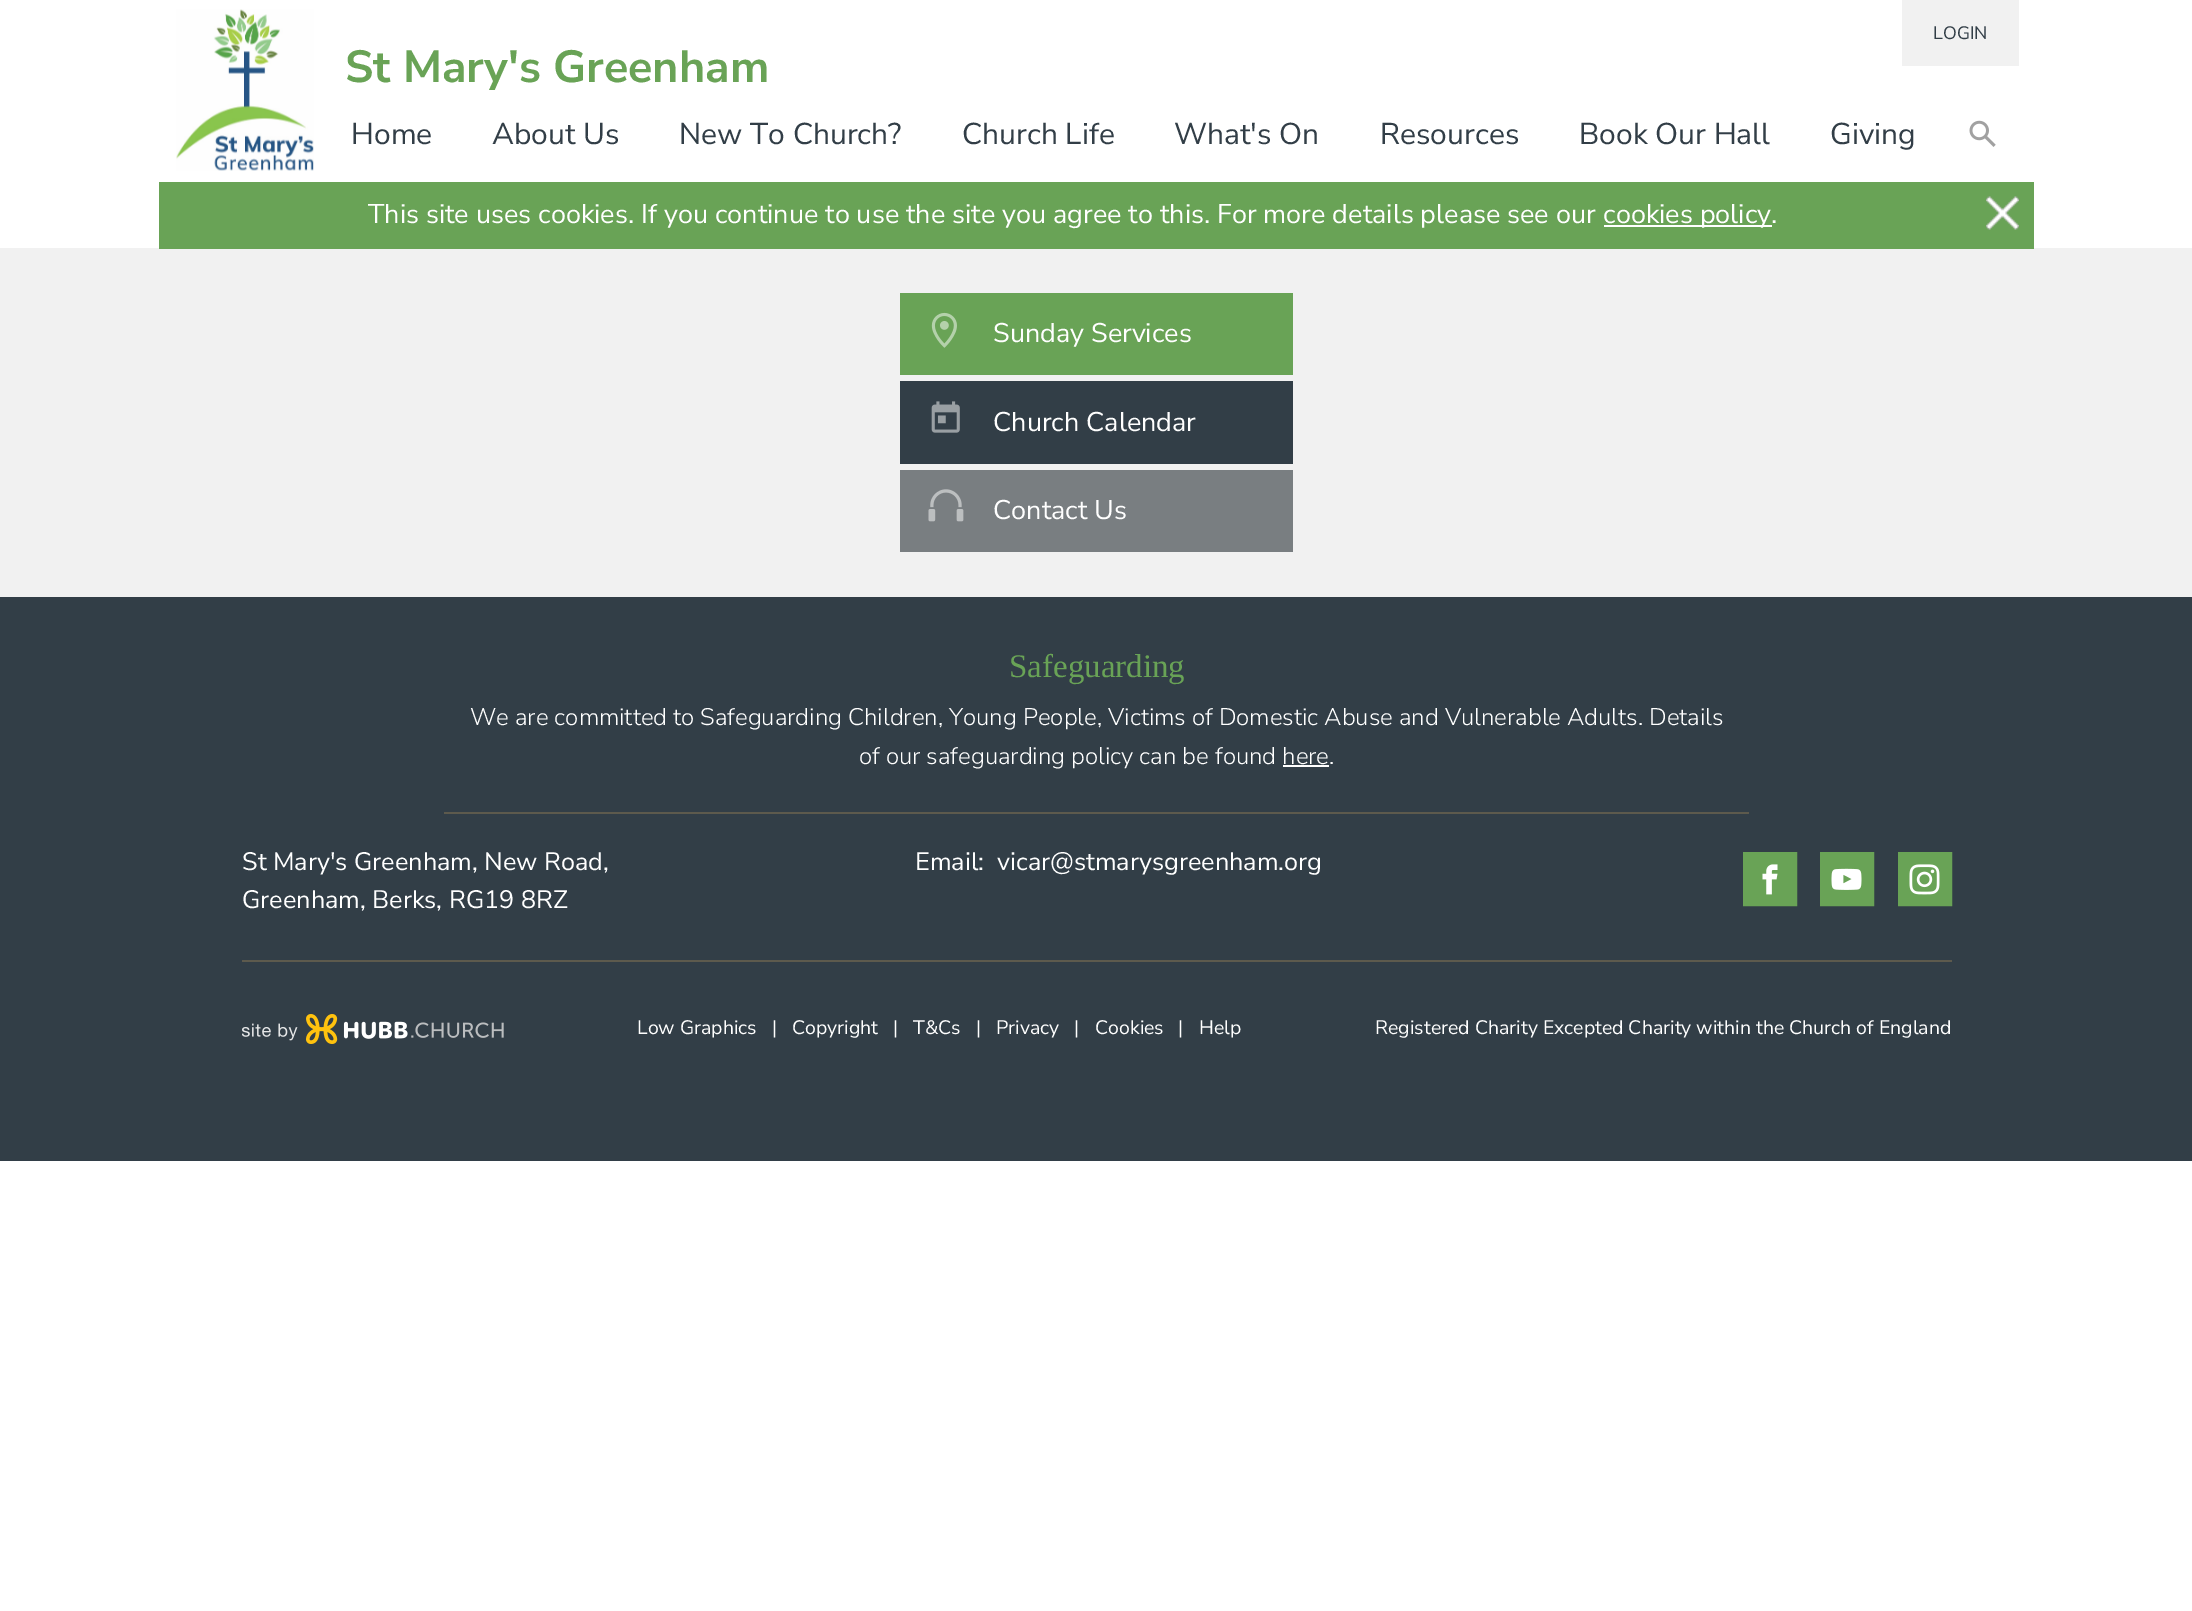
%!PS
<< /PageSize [2192 1611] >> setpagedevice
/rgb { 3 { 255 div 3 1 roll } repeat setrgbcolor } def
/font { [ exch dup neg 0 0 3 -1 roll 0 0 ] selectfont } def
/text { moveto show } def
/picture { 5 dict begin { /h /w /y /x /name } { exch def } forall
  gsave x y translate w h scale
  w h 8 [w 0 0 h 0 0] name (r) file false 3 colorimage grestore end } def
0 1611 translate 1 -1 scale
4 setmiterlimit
255 255 255 rgb
0 0 2192 1611 rectfill
241 241 241 rgb
1902 0 117 66 rectfill
(img_01.rgb) 176 9 138 162 picture
(img_02.rgb) 1969 120 27 27 picture
0 248 2192 349 rectfill
105 163 86 rgb
159 182 1875 67 rectfill
255 255 255 rgb
1604 225 168 2 rectfill
(img_03.rgb) 1986 196 33 34 picture
105 163 86 rgb
900 293 393 82 rectfill
(img_04.rgb) 931 312 26 36 picture
50 62 71 rgb
900 381 393 83 rectfill
(img_05.rgb) 931 401 29 32 picture
121 126 129 rgb
900 470 393 82 rectfill
(img_06.rgb) 928 489 36 33 picture
50 62 71 rgb
0 597 2192 564 rectfill
93 90 77 rgb
444 812 1305 2 rectfill
255 255 255 rgb
1283 765 46 2 rectfill
105 163 86 rgb
1749 858 moveto 42 0 rlineto 0 42 rlineto -42 0 rlineto closepath gsave fill grestore
12 setlinewidth
stroke
(img_07.rgb) 1762 864 16 31 picture
1826 858 moveto 42 0 rlineto 0 42 rlineto -42 0 rlineto closepath gsave fill grestore
stroke
(img_08.rgb) 1831 868 31 22 picture
1904 858 moveto 42 0 rlineto 0 42 rlineto -42 0 rlineto closepath gsave fill grestore
stroke
(img_09.rgb) 1909 864 31 31 picture
93 90 77 rgb
242 960 1710 2 rectfill
(img_10.rgb) 242 1014 262 30 picture
/NunitoSans-Regular 18 font
50 62 71 rgb
(LOGIN) 1933 39 text
/NunitoSans-Bold 45 font
105 163 86 rgb
(St Mary's Greenham) 345 82 text
/NunitoSans-Regular 30 font
50 62 71 rgb
(Home) 351 144 text
(About Us) 492 144 text
(New To Church?) 679 144 text
(Church Life) 962 144 text
(What's On) 1174 144 text
(Resources) 1380 144 text
(Book Our Hall) 1579 144 text
(Giving) 1830 144 text
/NunitoSans-Regular 27 font
255 255 255 rgb
(This site uses cookies. If you continue to use the site you agree to this. For more details please see our) 368 223 text
(cookies policy.) 1603 223 text
(Sunday Services) 993 342 text
(Church Calendar) 993 431 text
(Contact Us) 993 519 text
/LiberationSerif-Regular 33 font
105 163 86 rgb
(Safeguarding) 1009 677 text
/NunitoSans-Light 24 font
255 255 255 rgb
(We are committed to Safeguarding Children, Young People, Victims of Domestic Abuse and Vulnerable Adults. Details) 470 725 text
(of our safeguarding policy can be found here.) 859 764 text
/NunitoSans-Regular 25.25 font
(St Mary's Greenham, New Road,) 242 870 text
(Greenham, Berks, RG19 8RZ) 242 908 text
(Email:) 915 870 text
(vicar@stmarysgreenham.org) 997 870 text
/NunitoSans-Regular 19.5 font
(Low Graphics) 637 1034 text
(|) 772 1034 text
(Copyright) 792 1034 text
(|) 893 1034 text
(T&Cs) 913 1034 text
(|) 976 1034 text
(Privacy) 996 1034 text
(|) 1074 1034 text
(Cookies) 1095 1034 text
(|) 1178 1034 text
(Help) 1199 1034 text
(Registered Charity Excepted Charity within the Church of England) 1375 1034 text
showpage
